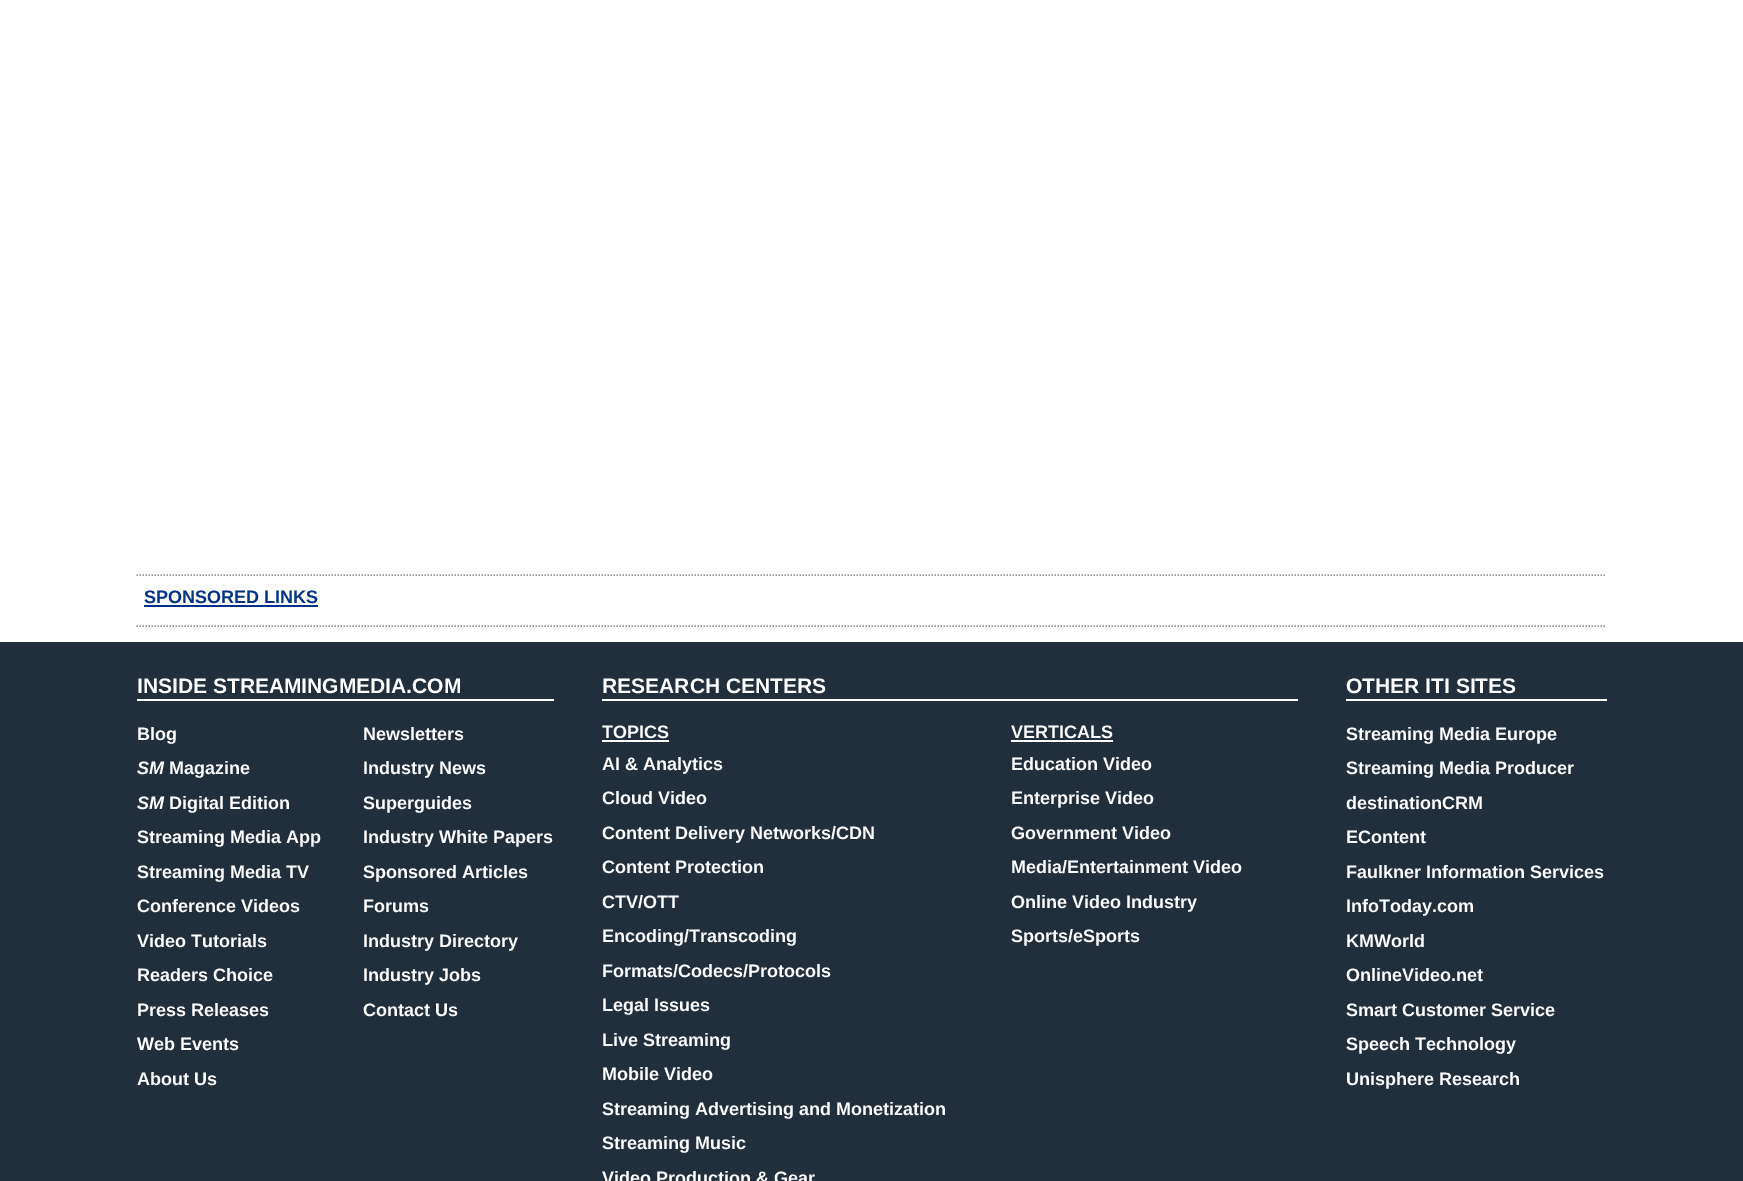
%!PS
<< /PageSize [1743 1181] >> setpagedevice
/rgb { 3 { 255 div 3 1 roll } repeat setrgbcolor } def
/font { [ exch dup neg 0 0 3 -1 roll 0 0 ] selectfont } def
/text { moveto show } def
0 1181 translate 1 -1 scale
4 setmiterlimit
255 255 255 rgb
0 0 1743 1181 rectfill
153 153 153 rgb
1.5 setlinewidth
[1.5 1.5] 0 setdash
136.5 575 moveto 1470 0 rlineto stroke
136.5 626 moveto 1470 0 rlineto stroke
0 51 136 rgb
144 605 174 2 rectfill
33 46 60 rgb
0 642 1743 539 rectfill
255 255 255 rgb
137 699 417 2 rectfill
602 699 696 2 rectfill
602 740 67 2 rectfill
1011 740 102 2 rectfill
1346 699 261 2 rectfill
/LiberationSans-Bold 18 font
0 51 136 rgb
(SPONSORED LINKS) 144 603 text
/LiberationSans-Bold 21 font
255 255 255 rgb
(INSIDE STREAMINGMEDIA.COM) 137 693 text
/LiberationSans-Bold 18 font
(Blog) 137 740 text
/LiberationSans-BoldItalic 18 font
(SM) 137 774 text
/LiberationSans-Bold 18 font
(Magazine) 169 774 text
/LiberationSans-BoldItalic 18 font
(SM) 137 809 text
/LiberationSans-Bold 18 font
(Digital Edition) 169 809 text
(Streaming Media App) 137 843 text
(Streaming Media TV) 137 878 text
(Conference Videos) 137 912 text
(Video Tutorials) 137 947 text
(Readers Choice) 137 981 text
(Press Releases) 137 1016 text
(Web Events) 137 1050 text
(About Us) 137 1085 text
(Newsletters) 363 740 text
(Industry News) 363 774 text
(Superguides) 363 809 text
(Industry White Papers) 363 843 text
(Sponsored Articles) 363 878 text
(Forums) 363 912 text
(Industry Directory) 363 947 text
(Industry Jobs) 363 981 text
(Contact Us) 363 1016 text
/LiberationSans-Bold 21 font
(RESEARCH CENTERS) 602 693 text
/LiberationSans-Bold 18 font
(TOPICS) 602 738 text
(AI & Analytics) 602 770 text
(Cloud Video) 602 804 text
(Content Delivery Networks/CDN) 602 839 text
(Content Protection) 602 873 text
(CTV/OTT) 602 908 text
(Encoding/Transcoding) 602 942 text
(Formats/Codecs/Protocols) 602 977 text
(Legal Issues) 602 1011 text
(Live Streaming) 602 1046 text
(Mobile Video) 602 1080 text
(Streaming Advertising and Monetization) 602 1115 text
(Streaming Music) 602 1149 text
(Video Production & Gear) 602 1184 text
(VERTICALS) 1011 738 text
(Education Video) 1011 770 text
(Enterprise Video) 1011 804 text
(Government Video) 1011 839 text
(Media/Entertainment Video) 1011 873 text
(Online Video Industry) 1011 908 text
(Sports/eSports) 1011 942 text
/LiberationSans-Bold 21 font
(OTHER ITI SITES) 1346 693 text
/LiberationSans-Bold 18 font
(Streaming Media Europe) 1346 740 text
(Streaming Media Producer) 1346 774 text
(destinationCRM) 1346 809 text
(EContent) 1346 843 text
(Faulkner Information Services) 1346 878 text
(InfoToday.com) 1346 912 text
(KMWorld) 1346 947 text
(OnlineVideo.net) 1346 981 text
(Smart Customer Service) 1346 1016 text
(Speech Technology) 1346 1050 text
(Unisphere Research) 1346 1085 text
showpage
